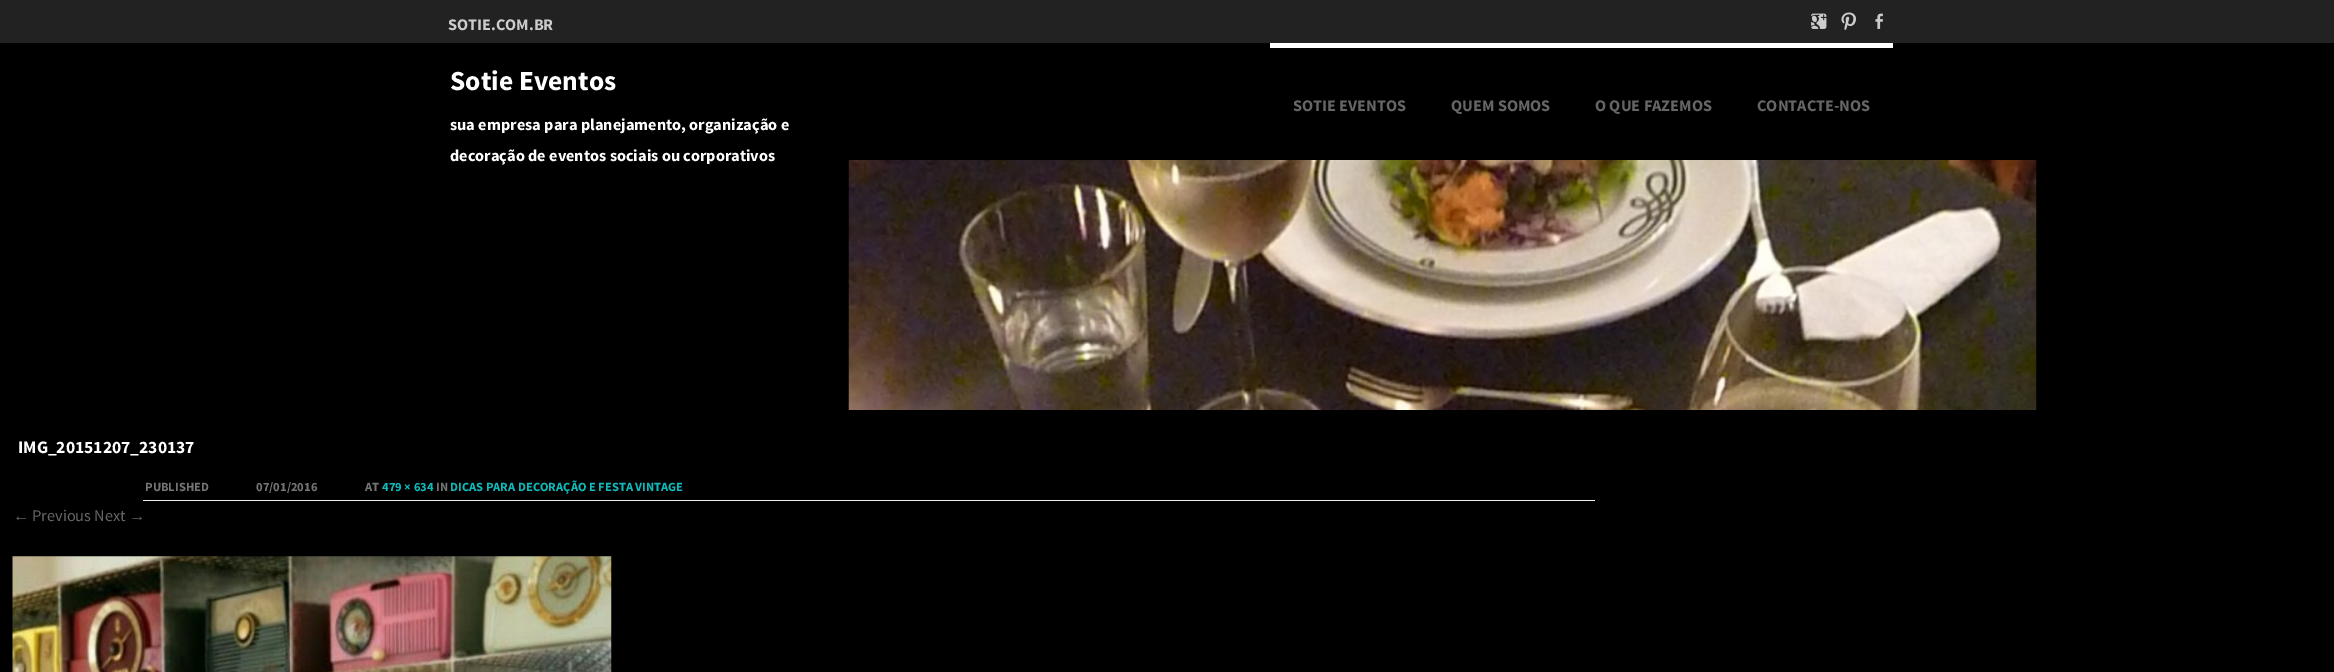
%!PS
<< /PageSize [2334 672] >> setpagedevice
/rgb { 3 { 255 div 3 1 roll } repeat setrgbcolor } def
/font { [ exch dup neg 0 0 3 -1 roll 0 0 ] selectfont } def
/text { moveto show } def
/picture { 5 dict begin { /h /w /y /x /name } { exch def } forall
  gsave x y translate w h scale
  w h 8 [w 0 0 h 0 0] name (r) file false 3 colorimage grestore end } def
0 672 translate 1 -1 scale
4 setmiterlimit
0 0 0 rgb
0 0 2334 672 rectfill
34 34 34 rgb
0 0 2334 43 rectfill
(img_01.rgb) 1811 13 16 16 picture
(img_02.rgb) 1841 12 15 18 picture
(img_03.rgb) 1875 13 8 16 picture
255 255 255 rgb
1270 43 623 5 rectfill
(img_04.rgb) 848 160 1189 250 picture
239 239 239 rgb
143 500 1452 1 rectfill
(img_05.rgb) 12 556 600 116 picture
/SourceSansPro-Bold 16.25 font
204 204 204 rgb
(SOTIE.COM.BR) 448 30 text
/SourceSansPro-Bold 27.5 font
255 255 255 rgb
(Sotie Eventos) 450 90 text
/SourceSansPro-Bold 16.25 font
(sua empresa para planejamento, organização e) 450 130 text
(decoração de eventos sociais ou corporativos) 450 161 text
102 102 102 rgb
(SOTIE EVENTOS) 1293 111 text
(QUEM SOMOS) 1451 111 text
(O QUE FAZEMOS) 1595 111 text
(CONTACTE-NOS) 1757 111 text
/SourceSansPro-Bold 17.5 font
255 255 255 rgb
(IMG_20151207_230137) 18 453 text
/SourceSansPro-Bold 12.5 font
116 116 116 rgb
(PUBLISHED) 145 491 text
(07/01/2016) 256 491 text
(AT) 365 491 text
16 185 185 rgb
(479 × 634) 382 491 text
116 116 116 rgb
(IN) 436 491 text
16 185 185 rgb
(DICAS PARA DECORAÇÃO E FESTA VINTAGE) 450 491 text
/LiberationSans-Regular 16.25 font
102 102 102 rgb
(←) 13 521 text
/SourceSansPro-Regular 16.25 font
(Previous Next) 32 521 text
/LiberationSans-Regular 16.25 font
(→) 129 521 text
showpage
